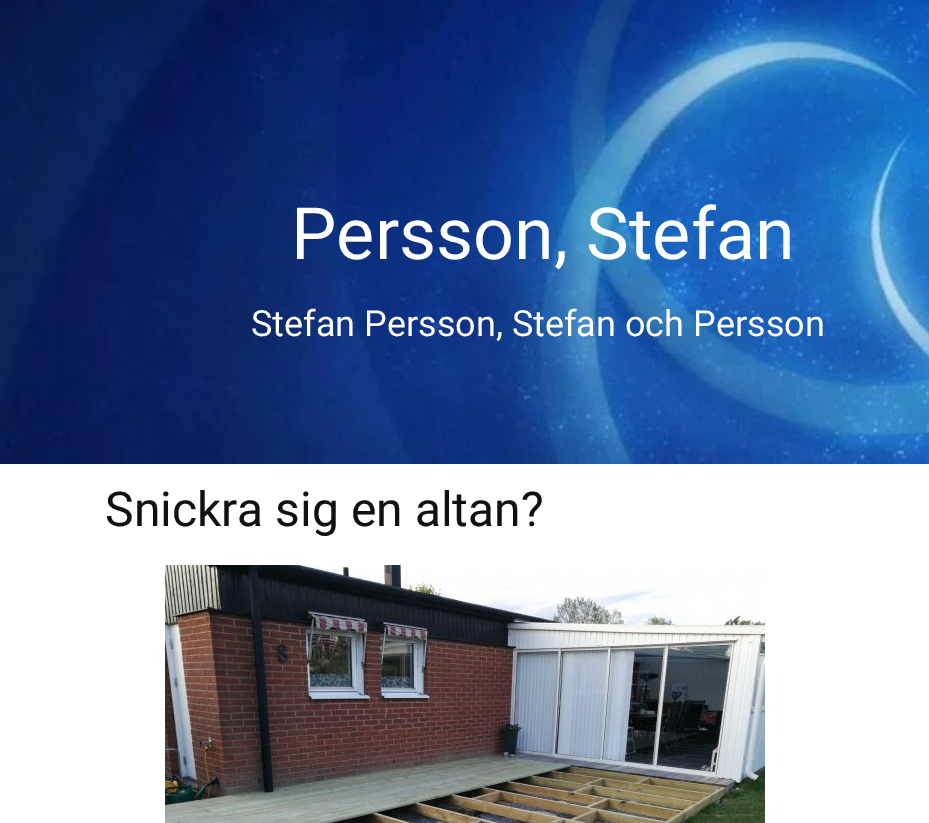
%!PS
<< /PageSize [929 823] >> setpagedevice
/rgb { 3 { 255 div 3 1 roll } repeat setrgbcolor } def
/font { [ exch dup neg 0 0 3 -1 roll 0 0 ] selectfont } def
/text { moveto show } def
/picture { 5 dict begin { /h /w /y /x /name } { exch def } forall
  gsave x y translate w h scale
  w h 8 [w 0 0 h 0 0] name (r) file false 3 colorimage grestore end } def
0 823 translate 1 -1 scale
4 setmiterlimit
255 255 255 rgb
0 0 929 823 rectfill
(img_01.rgb) 0 0 929 464 picture
(img_02.rgb) 165 565 600 258 picture
/Roboto-Regular 72 font
(Persson, Stefan) 291 259 text
/Roboto-Regular 36 font
(Stefan Persson, Stefan och Persson) 251 336 text
/Roboto-Regular 48 font
17 17 17 rgb
(Snickra sig en altan?) 105 526 text
showpage
